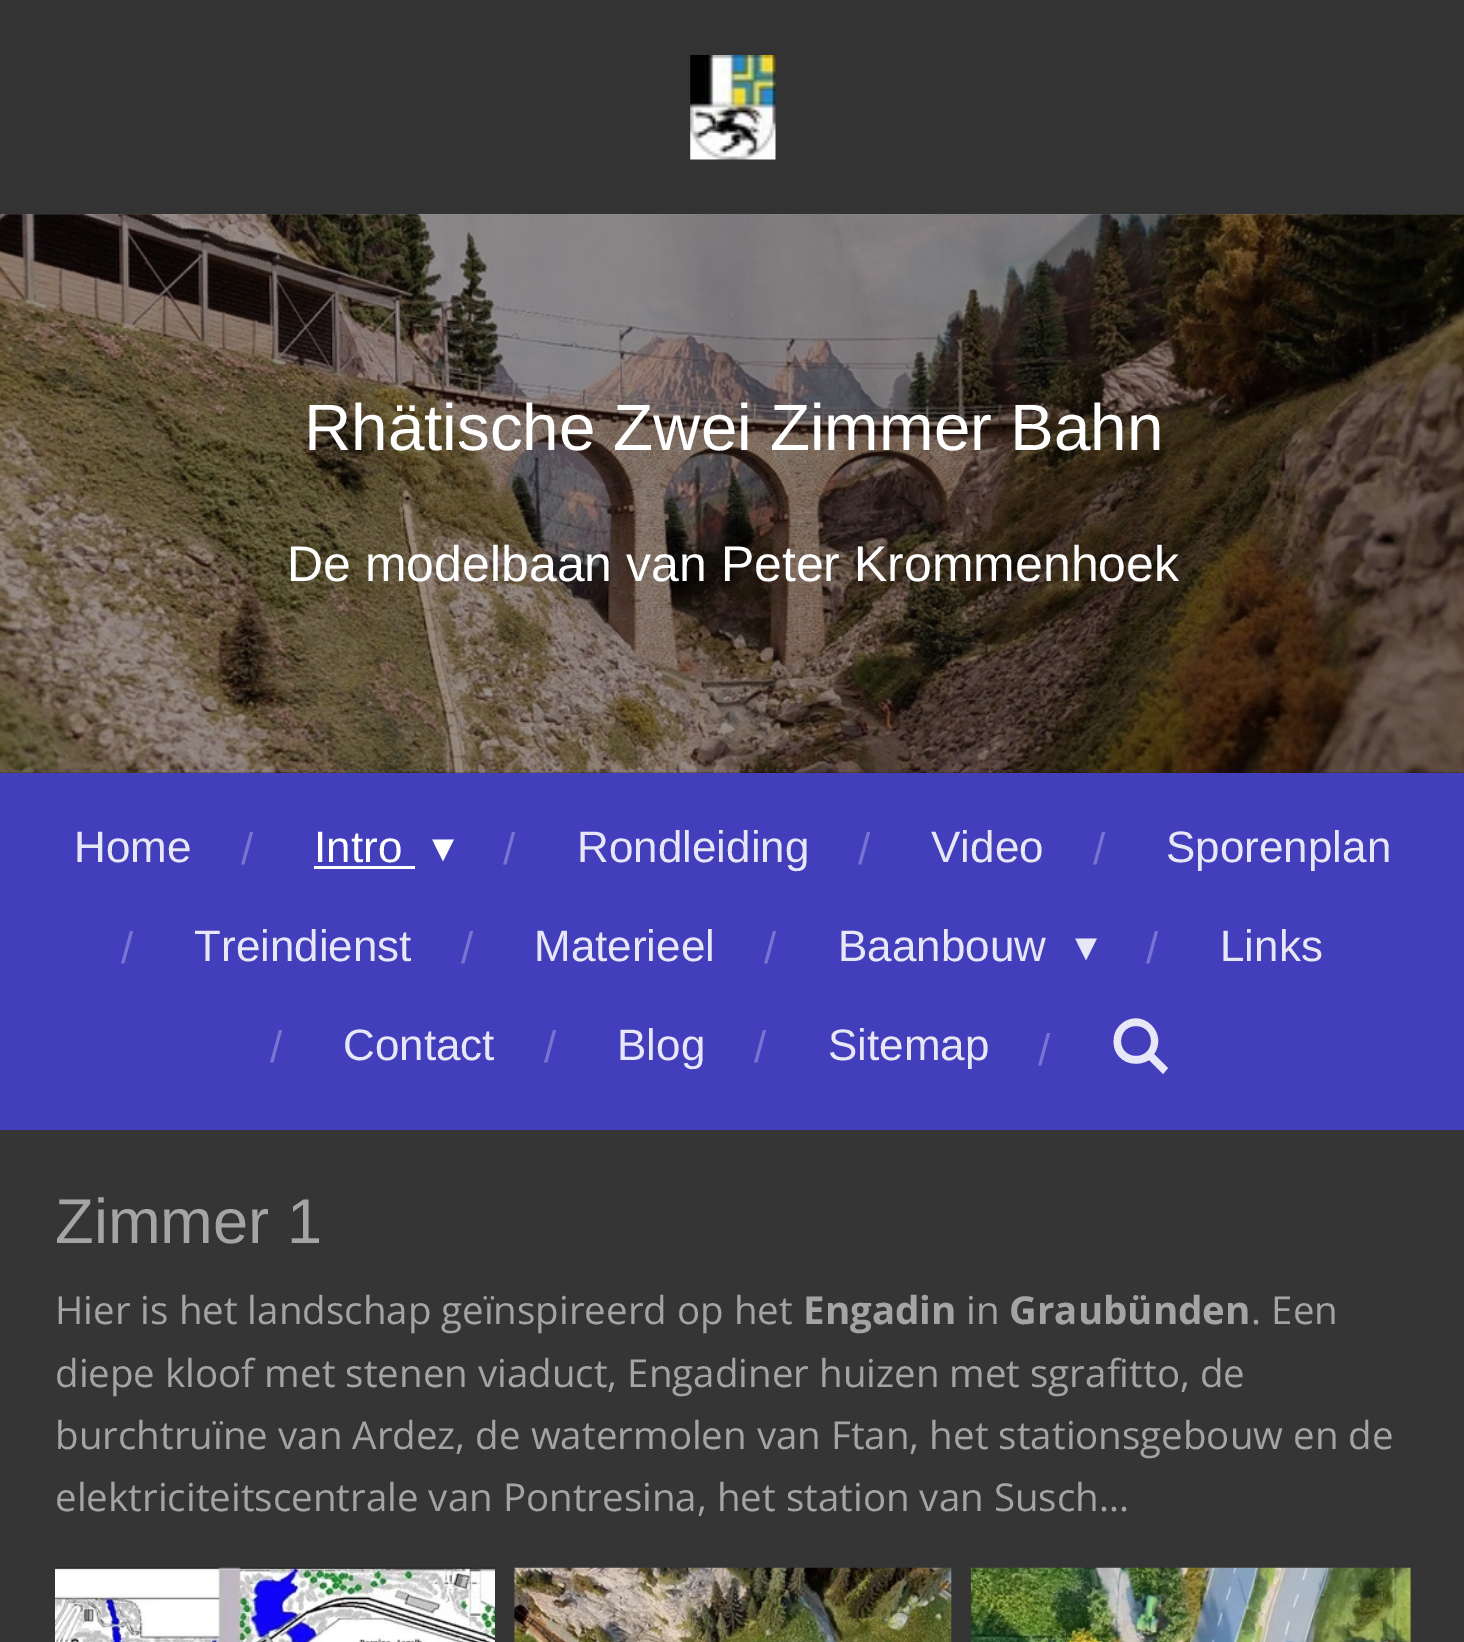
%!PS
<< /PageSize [1464 1642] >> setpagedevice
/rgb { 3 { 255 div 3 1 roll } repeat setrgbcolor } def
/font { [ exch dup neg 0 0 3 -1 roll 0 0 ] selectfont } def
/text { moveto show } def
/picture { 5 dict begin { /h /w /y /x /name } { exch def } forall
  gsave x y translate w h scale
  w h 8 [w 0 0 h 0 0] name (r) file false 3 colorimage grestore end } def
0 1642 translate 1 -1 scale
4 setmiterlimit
255 255 255 rgb
0 0 1464 1642 rectfill
51 51 51 rgb
0 0 1464 215 rectfill
(img_01.rgb) 690 55 86 105 picture
(img_02.rgb) 0 214 1464 559 picture
67 62 187 rgb
0 773 1464 357 rectfill
255 255 255 rgb
314 866 101 3 rectfill
232 231 247 rgb
1154 1054 moveto 14 14 rlineto -5 6 rlineto -14 -14 rlineto -11 7 -27 4 -33 -8 rcurveto -3 -6 -3 -13 -1 -19 rcurveto 2 -5 5 -8 9 -11 rcurveto 20 -13 44 12 30 32 rcurveto closepath 1151 1041 moveto 0 -20 -30 -20 -30 0 rcurveto 0 20 30 20 30 0 rcurveto closepath fill
53 53 53 rgb
0 1130 1464 512 rectfill
(img_03.rgb) 55 1567 440 75 picture
(img_04.rgb) 514 1567 438 75 picture
(img_05.rgb) 970 1567 441 75 picture
/LiberationSans-Regular 65.5 font
255 255 255 rgb
(Rhätische Zwei Zimmer Bahn) 304 450 text
/LiberationSans-Regular 50 font
(De modelbaan van Peter Krommenhoek) 287 581 text
/LiberationSans-Regular 44 font
232 231 247 rgb
(Home) 74 862 text
120 116 209 rgb
(/) 241 864 text
255 255 255 rgb
(Intro) 314 862 text
/DejaVuSans-Regular 44 font
(▾) 432 862 text
/LiberationSans-Regular 44 font
120 116 209 rgb
(/) 503 864 text
232 231 247 rgb
(Rondleiding) 577 862 text
120 116 209 rgb
(/) 858 864 text
232 231 247 rgb
(Video) 931 862 text
120 116 209 rgb
(/) 1093 864 text
232 231 247 rgb
(Sporenplan) 1166 862 text
120 116 209 rgb
(/) 121 963 text
232 231 247 rgb
(Treindienst) 194 961 text
120 116 209 rgb
(/) 461 963 text
232 231 247 rgb
(Materieel) 534 961 text
120 116 209 rgb
(/) 764 963 text
232 231 247 rgb
(Baanbouw) 838 961 text
/DejaVuSans-Regular 44 font
(▾) 1075 961 text
/LiberationSans-Regular 44 font
120 116 209 rgb
(/) 1146 963 text
232 231 247 rgb
(Links) 1220 961 text
120 116 209 rgb
(/) 270 1062 text
232 231 247 rgb
(Contact) 343 1060 text
120 116 209 rgb
(/) 544 1062 text
232 231 247 rgb
(Blog) 617 1060 text
120 116 209 rgb
(/) 754 1062 text
232 231 247 rgb
(Sitemap) 828 1060 text
120 116 209 rgb
(/) 1038 1065 text
/LiberationSans-Regular 63.25 font
164 164 164 rgb
(Zimmer 1) 55 1243 text
/OpenSans-Regular 38.5 font
(Hier is het landschap geïnspireerd op het) 55 1324 text
/OpenSans-Bold 38.5 font
(Engadin) 803 1324 text
/OpenSans-Regular 38.5 font
(in) 966 1324 text
/OpenSans-Bold 38.5 font
(Graubünden) 1009 1324 text
/OpenSans-Regular 38.5 font
(. Een) 1251 1324 text
(diepe kloof met stenen viaduct, Engadiner huizen met sgrafitto, de) 55 1387 text
(burchtruïne van Ardez, de watermolen van Ftan, het stationsgebouw en de) 55 1449 text
(elektriciteitscentrale van Pontresina, het station van Susch...) 55 1511 text
showpage
